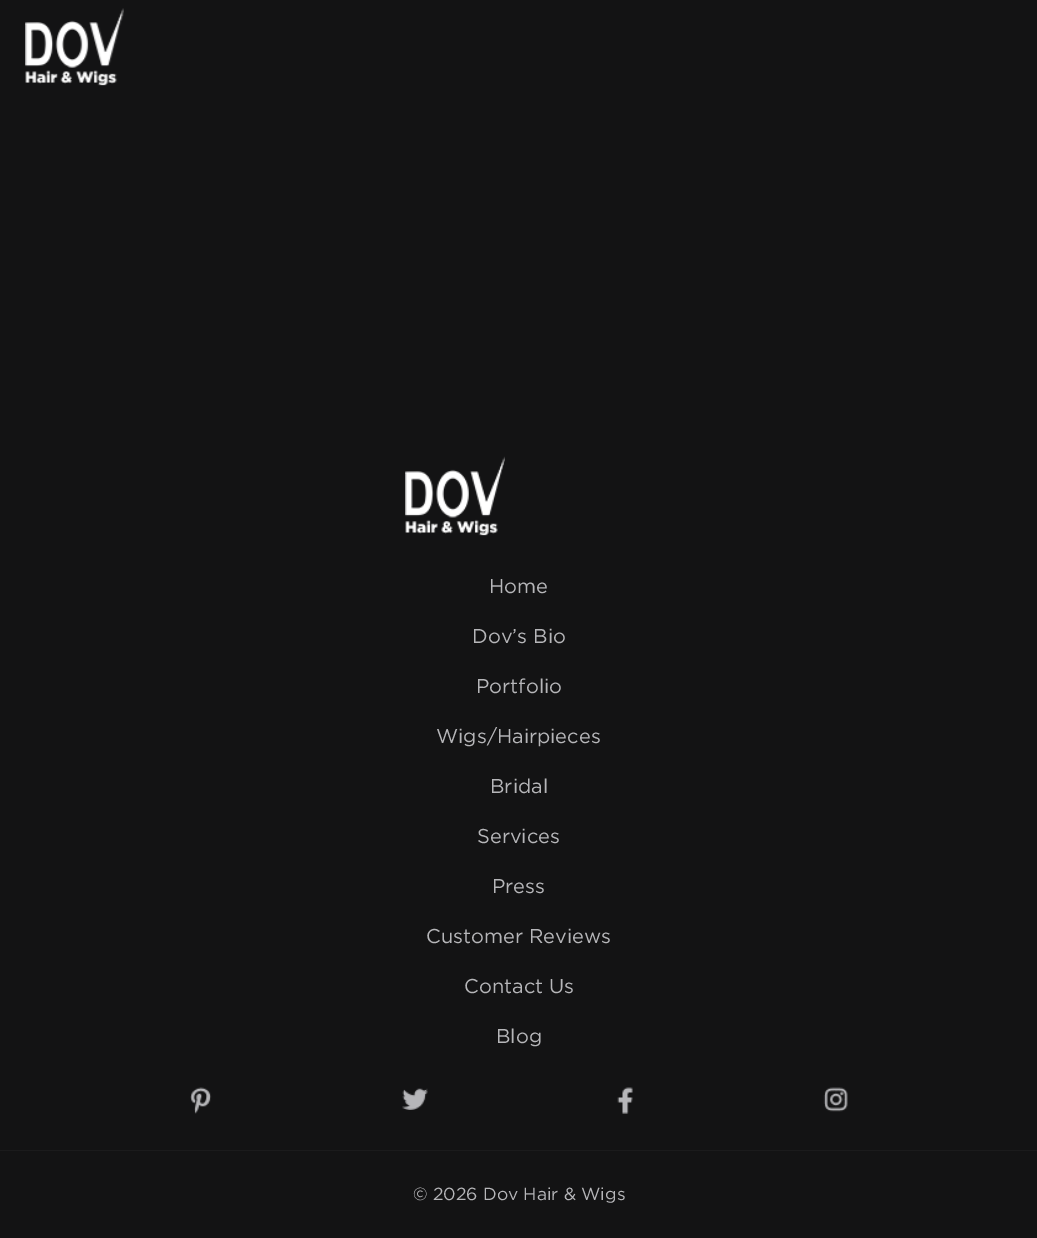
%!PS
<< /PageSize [1037 1238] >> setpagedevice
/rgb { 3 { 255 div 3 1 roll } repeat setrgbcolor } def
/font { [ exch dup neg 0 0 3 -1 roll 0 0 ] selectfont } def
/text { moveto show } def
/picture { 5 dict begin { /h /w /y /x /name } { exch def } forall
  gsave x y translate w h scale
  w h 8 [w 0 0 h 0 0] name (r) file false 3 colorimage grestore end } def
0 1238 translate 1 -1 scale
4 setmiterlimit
19 19 20 rgb
0 0 1037 1238 rectfill
(img_01.rgb) 25 8 99 78 picture
(img_02.rgb) 405 456 100 80 picture
(img_03.rgb) 190 1087 22 27 picture
(img_04.rgb) 402 1088 26 22 picture
(img_05.rgb) 617 1087 16 27 picture
(img_06.rgb) 823 1087 25 25 picture
27 27 28 rgb
0 1150 1037 1 rectfill
/Gotham-Regular 20 font
182 182 185 rgb
(Home) 489 593 text
(Dov’s Bio) 472 643 text
(Portfolio) 476 693 text
(Wigs/Hairpieces) 436 743 text
(Bridal) 490 793 text
(Services) 477 843 text
(Press) 492 893 text
(Customer Reviews) 426 943 text
(Contact Us) 464 993 text
(Blog) 496 1043 text
/Gotham-Regular 17.5 font
(© 2026 Dov Hair & Wigs) 413 1200 text
showpage
